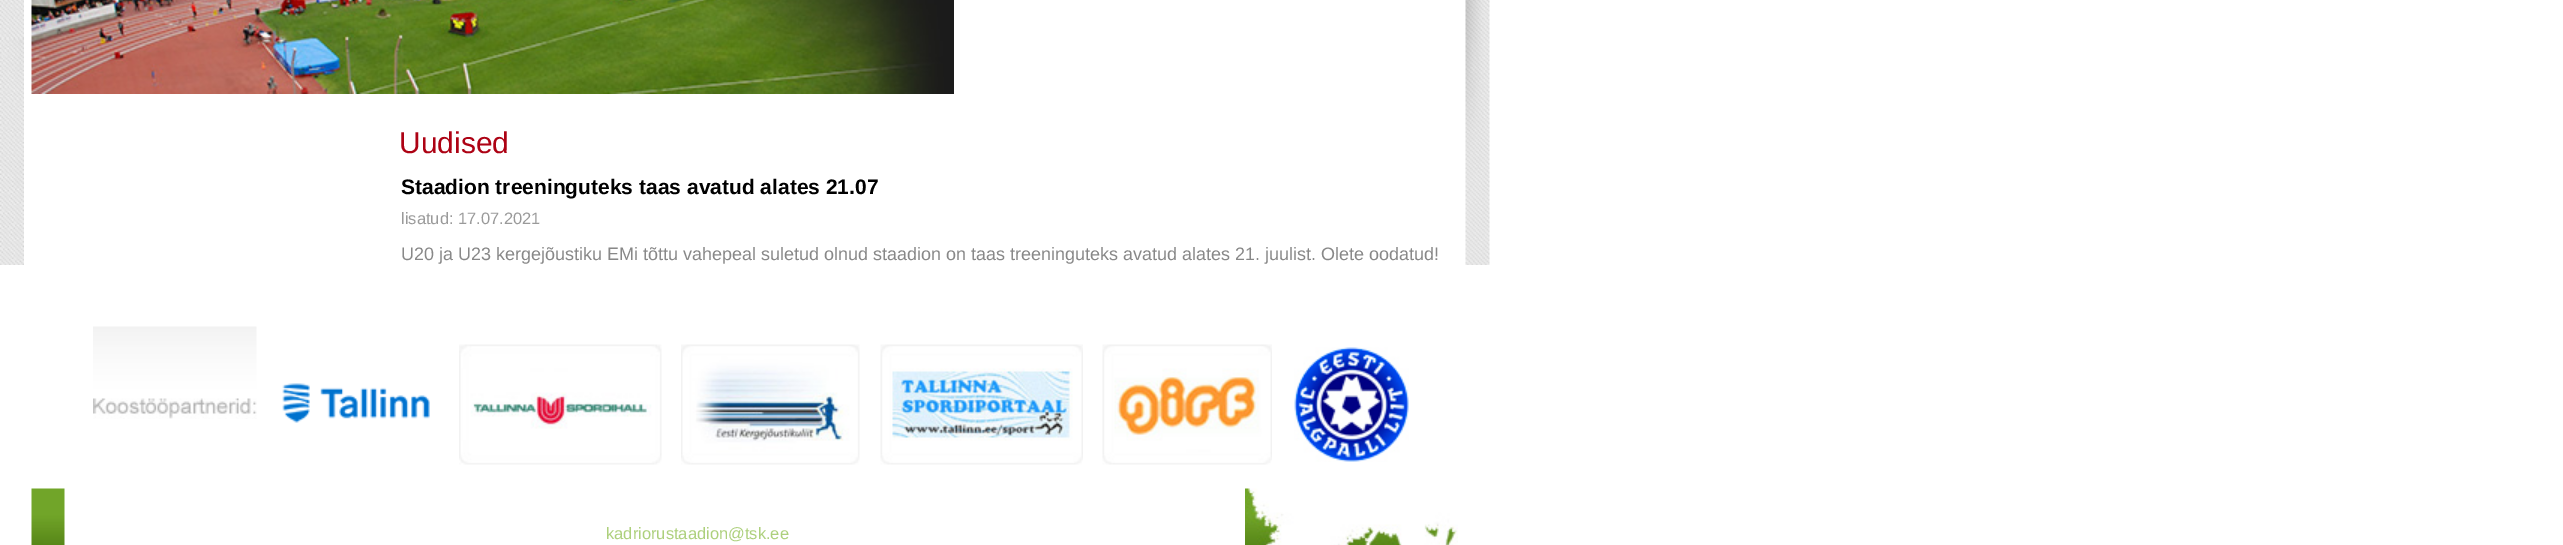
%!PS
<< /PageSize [2563 545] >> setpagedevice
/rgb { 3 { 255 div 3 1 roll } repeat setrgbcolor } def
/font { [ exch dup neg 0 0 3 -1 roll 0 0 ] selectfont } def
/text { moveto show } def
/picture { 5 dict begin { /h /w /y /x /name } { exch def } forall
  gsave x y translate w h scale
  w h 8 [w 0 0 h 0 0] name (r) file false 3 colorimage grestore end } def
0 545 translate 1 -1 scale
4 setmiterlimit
255 255 255 rgb
0 0 2563 545 rectfill
(img_01.rgb) 0 0 24 265 picture
(img_02.rgb) 31 0 923 94 picture
(img_03.rgb) 93 326 164 93 picture
(img_04.rgb) 282 383 148 40 picture
(img_05.rgb) 459 344 203 121 picture
(img_06.rgb) 681 344 179 121 picture
(img_07.rgb) 880 344 203 121 picture
(img_08.rgb) 1102 344 170 121 picture
(img_09.rgb) 1294 347 115 115 picture
(img_10.rgb) 31 488 34 57 picture
(img_11.rgb) 1245 488 213 57 picture
(img_12.rgb) 1465 0 25 265 picture
/LiberationSans-Regular 30 font
173 2 20 rgb
(Uudised) 399 153 text
/LiberationSans-Bold 21 font
0 0 0 rgb
(Staadion treeninguteks taas avatud alates 21.07) 401 194 text
/LiberationSans-Regular 16.5 font
154 154 154 rgb
(lisatud: 17.07.2021) 401 224 text
/LiberationSans-Regular 18 font
136 136 136 rgb
(U20 ja U23 kergejõustiku EMi tõttu vahepeal suletud olnud staadion on taas treeninguteks avatud alates 21. juulist. Olete oodatud!) 401 260 text
/LiberationSans-Regular 16.5 font
173 208 124 rgb
(kadriorustaadion@tsk.ee) 606 539 text
showpage
